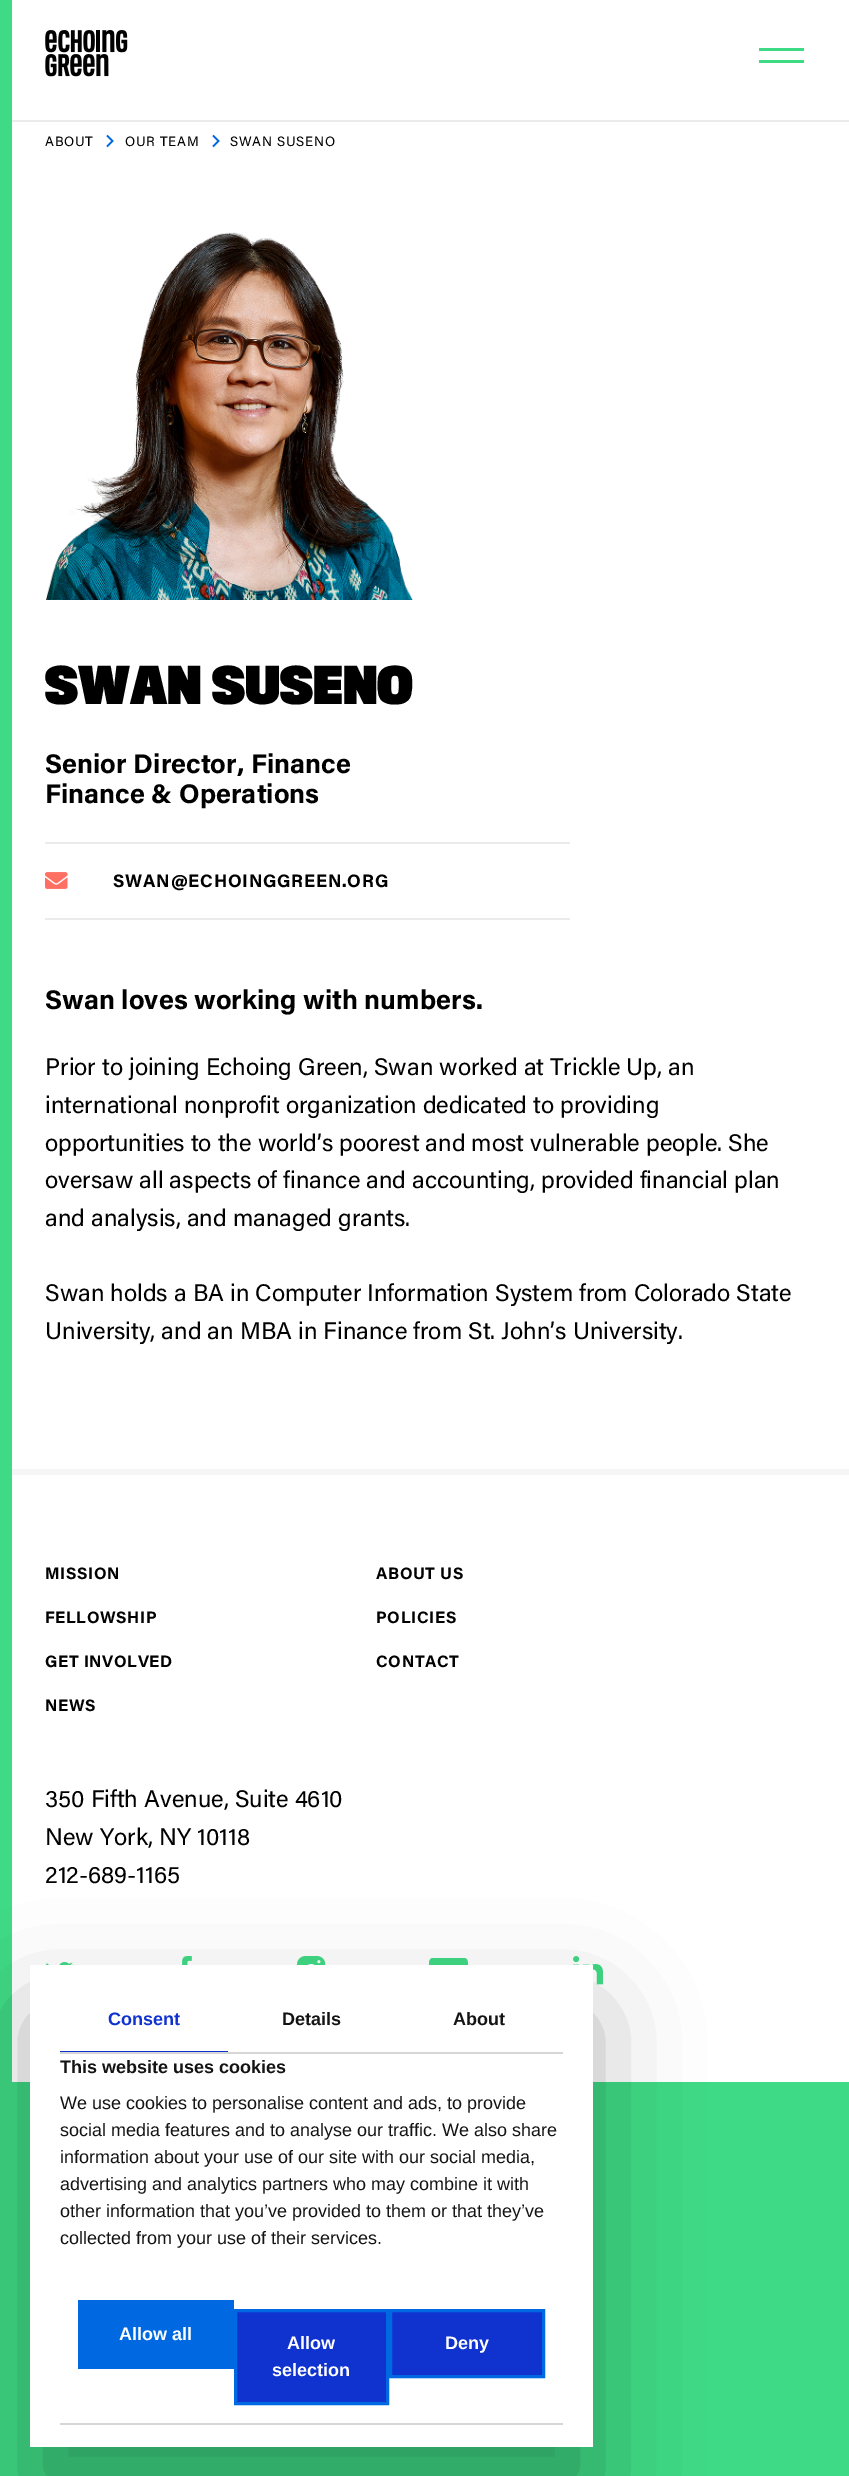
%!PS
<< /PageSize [849 2476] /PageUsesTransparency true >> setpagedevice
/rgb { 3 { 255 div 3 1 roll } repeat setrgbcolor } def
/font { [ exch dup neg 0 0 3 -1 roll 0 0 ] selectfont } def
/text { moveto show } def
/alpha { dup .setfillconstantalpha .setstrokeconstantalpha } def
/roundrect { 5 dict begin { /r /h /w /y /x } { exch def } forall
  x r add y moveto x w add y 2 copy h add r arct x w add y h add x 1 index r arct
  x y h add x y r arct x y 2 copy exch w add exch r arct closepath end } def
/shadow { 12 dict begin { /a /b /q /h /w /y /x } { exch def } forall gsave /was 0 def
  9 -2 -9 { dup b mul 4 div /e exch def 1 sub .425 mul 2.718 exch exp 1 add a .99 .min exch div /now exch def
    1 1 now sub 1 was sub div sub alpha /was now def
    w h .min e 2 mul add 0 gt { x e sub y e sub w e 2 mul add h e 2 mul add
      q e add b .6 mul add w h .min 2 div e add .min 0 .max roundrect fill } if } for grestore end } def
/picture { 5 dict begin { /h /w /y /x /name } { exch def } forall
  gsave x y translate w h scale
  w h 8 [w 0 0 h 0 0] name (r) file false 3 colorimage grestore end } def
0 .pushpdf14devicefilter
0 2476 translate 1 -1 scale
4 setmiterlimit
63 218 133 rgb
0 0 849 2476 rectfill
255 255 255 rgb
12 0 837 2082 rectfill
(img_01.rgb) 45 30 83 47 picture
63 218 133 rgb
759 60 45 3 rectfill
759 48 45 3 rectfill
235 235 235 rgb
12 120 837 2 rectfill
0 105 225 rgb
1.7 setlinewidth
107 146.5 moveto 5.5 -5.5 rlineto -5.5 -5.5 rlineto stroke
213 146.5 moveto 5.5 -5.5 rlineto -5.5 -5.5 rlineto stroke
(img_02.rgb) 46 232 367 368 picture
235 235 235 rgb
45 842 525 2 rectfill
45 918 525 2 rectfill
(img_03.rgb) 45 872 23 17 picture
245 245 245 rgb
12 1469 837 6 rectfill
(img_04.rgb) 46 1962 28 3 picture
(img_05.rgb) 182 1956 10 9 picture
(img_06.rgb) 297 1956 29 9 picture
(img_07.rgb) 429 1958 39 7 picture
(img_08.rgb) 573 1956 30 29 picture
0 0 0 rgb
30 2013 563 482 0 51 0.3 shadow
255 255 255 rgb
30 1965 563 482 rectfill
214 214 214 rgb
60 2052 503 2 rectfill
16 50 207 rgb
60 2051 168 1 rectfill
214 214 214 rgb
60 2423 503 2 rectfill
0 105 225 rgb
78 2300 156 69 rectfill
16 50 207 rgb
235.5 2310.5 moveto 152 0 rlineto 0 93 rlineto -152 0 rlineto closepath gsave fill grestore
0 105 225 rgb
3 setlinewidth
stroke
16 50 207 rgb
390.5 2310.5 moveto 153 0 rlineto 0 66 rlineto -153 0 rlineto closepath gsave fill grestore
0 105 225 rgb
stroke
/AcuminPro-Regular 13.5 font
0 0 0 rgb
45 146 moveto 0.75 0 (ABOUT) ashow
125 146 moveto 0.75 0 (OUR TEAM) ashow
230 146 moveto 0.75 0 (SWAN SUSENO) ashow
/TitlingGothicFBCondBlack-Black 48 font
(SWAN SUSENO) 45 704 text
/AcuminPro-Bold 27 font
(Senior Director, Finance) 45 773 text
(Finance & Operations) 45 803 text
/AcuminPro-Bold 18 font
113 887 moveto 0.75 0 (SWAN@ECHOINGGREEN.ORG) ashow
/AcuminPro-Bold 27 font
(Swan loves working with numbers.) 45 1009 text
/AcuminPro-Regular 24 font
(Prior to joining Echoing Green, Swan worked at Trickle Up, an) 45 1075 text
(international nonprofit organization dedicated to providing) 45 1113 text
(opportunities to the world’s poorest and most vulnerable people. She) 45 1151 text
(oversaw all aspects of finance and accounting, provided financial plan) 45 1188 text
(and analysis, and managed grants.) 45 1226 text
(Swan holds a BA in Computer Information System from Colorado State) 45 1301 text
(University, and an MBA in Finance from St. John’s University.) 45 1339 text
/AcuminPro-Bold 16.5 font
45 1579 moveto 0.6 0 (MISSION) ashow
45 1623 moveto 0.6 0 (FELLOWSHIP) ashow
45 1667 moveto 0.6 0 (GET INVOLVED) ashow
45 1711 moveto 0.6 0 (NEWS) ashow
376 1579 moveto 0.6 0 (ABOUT US) ashow
376 1623 moveto 0.6 0 (POLICIES) ashow
376 1667 moveto 0.6 0 (CONTACT) ashow
/AcuminPro-Regular 24 font
(350 Fifth Avenue, Suite 4610) 45 1807 text
(New York, NY 10118) 45 1845 text
(212-689-1165) 45 1883 text
/LiberationSans-Bold 18 font
16 50 207 rgb
(Consent) 108 2025 text
20 20 20 rgb
(Details) 282 2025 text
(About) 453 2025 text
(This website uses cookies) 60 2073 text
/LiberationSans-Regular 18 font
(We use cookies to personalise content and ads, to provide) 60 2109 text
(social media features and to analyse our traffic. We also share) 60 2136 text
(information about your use of our site with our social media,) 60 2163 text
(advertising and analytics partners who may combine it with) 60 2190 text
(other information that you’ve provided to them or that they’ve) 60 2217 text
(collected from your use of their services.) 60 2244 text
/LiberationSans-Bold 18 font
255 255 255 rgb
(Allow all) 119 2340 text
(Allow) 287 2349 text
(selection) 272 2376 text
(Deny) 445 2349 text
.poppdf14devicefilter showpage
